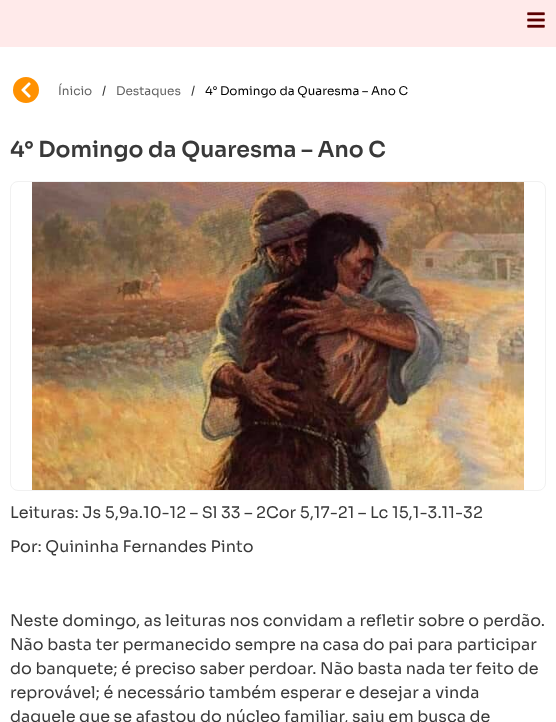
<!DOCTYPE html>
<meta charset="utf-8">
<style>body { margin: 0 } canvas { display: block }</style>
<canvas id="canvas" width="556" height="722"></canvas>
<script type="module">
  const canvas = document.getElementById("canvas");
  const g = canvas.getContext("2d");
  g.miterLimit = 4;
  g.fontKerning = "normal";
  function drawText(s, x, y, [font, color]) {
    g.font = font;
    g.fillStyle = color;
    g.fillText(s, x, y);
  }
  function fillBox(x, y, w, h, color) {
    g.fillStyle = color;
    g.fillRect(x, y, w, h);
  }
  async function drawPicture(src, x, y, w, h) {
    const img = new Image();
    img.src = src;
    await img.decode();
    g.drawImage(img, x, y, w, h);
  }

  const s1 = ["12px Sora", "#636363"];
  const s2 = ["12px Sora", "#333333"];
  const s3 = ["12px Sora", "#000000"];
  const s4 = ["600 22px Sora", "#393939"];
  const s5 = ["16px Sora", "#393939"];

  fillBox(0, 0, 556, 722, "#FFFFFF");
  fillBox(0, 0, 556, 47, "#FFEAEA");
  await drawPicture("pic1.png", 527, 12, 18, 16);
  g.fillStyle = "#FF9101";
  g.beginPath();
  g.arc(26, 90, 13, 0, Math.PI * 2);
  g.fill();
  await drawPicture("pic2.png", 21, 82, 10, 16);
  drawText("Ínicio", 58, 95, s1);
  drawText("/", 102, 95, s2);
  drawText("Destaques", 116, 95, s1);
  drawText("/", 191, 95, s2);
  drawText("4° Domingo da Quaresma – Ano C", 205, 95, s3);
  drawText("4° Domingo da Quaresma – Ano C", 10, 157, s4);
  g.beginPath();
  g.roundRect(10.5, 181.5, 535, 309, 7.5);
  g.strokeStyle = "#F1F1F1";
  g.stroke();
  await drawPicture("pic3.png", 32, 182, 492, 308);
  drawText("Leituras: Js 5,9a.10-12 – Sl 33 – 2Cor 5,17-21 – Lc 15,1-3.11-32", 10, 518, s5);
  drawText("Por: Quininha Fernandes Pinto", 10, 552, s5);
  drawText("Neste domingo, as leituras nos convidam a refletir sobre o perdão.", 10, 626, s5);
  drawText("Não basta ter permanecido sempre na casa do pai para participar", 10, 650, s5);
  drawText("do banquete; é preciso saber perdoar. Não basta nada ter feito de", 10, 674, s5);
  drawText("reprovável; é necessário também esperar e desejar a vinda", 10, 698, s5);
  drawText("daquele que se afastou do núcleo familiar, saiu em busca de", 10, 722, s5);
</script>
